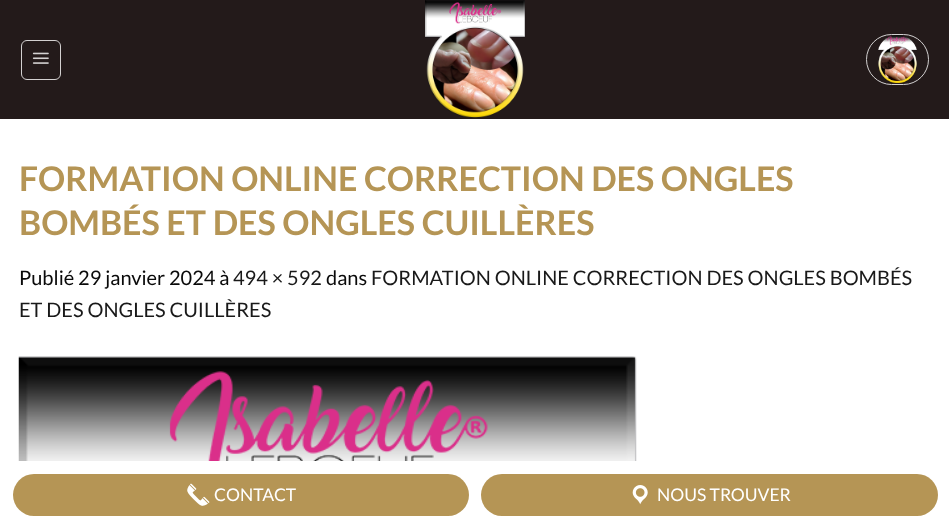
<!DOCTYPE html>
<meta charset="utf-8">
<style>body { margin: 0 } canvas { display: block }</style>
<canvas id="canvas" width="949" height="528"></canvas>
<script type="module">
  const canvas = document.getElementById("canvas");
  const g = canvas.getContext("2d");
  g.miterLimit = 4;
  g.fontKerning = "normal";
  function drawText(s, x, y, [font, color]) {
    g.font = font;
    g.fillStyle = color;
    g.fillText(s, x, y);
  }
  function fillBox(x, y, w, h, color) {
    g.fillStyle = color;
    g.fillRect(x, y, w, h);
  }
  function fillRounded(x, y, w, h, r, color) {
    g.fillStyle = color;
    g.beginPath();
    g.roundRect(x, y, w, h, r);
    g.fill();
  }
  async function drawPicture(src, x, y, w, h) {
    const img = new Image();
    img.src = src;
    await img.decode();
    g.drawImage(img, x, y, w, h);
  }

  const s1 = ["bold 34px Lato", "#B59555"];
  const s2 = ["20px Lato", "#0A0A0A"];
  const s3 = ["20px Lato", "#191919"];
  const s4 = ["17.5px Lato", "#FFFFFF"];

  fillBox(0, 0, 949, 528, "#FFFFFF");
  fillBox(0, 0, 949, 119, "#231A1A");
  g.beginPath();
  g.roundRect(21.5, 40.5, 39, 39, 5.5);
  g.strokeStyle = "#D3D1D1";
  g.stroke();
  await drawPicture("pic1.png", 32, 52, 17, 12);
  await drawPicture("pic2.png", 425, 0, 100, 118);
  g.beginPath();
  g.roundRect(866.5, 34.5, 62, 50, 25);
  g.stroke();
  await drawPicture("pic3.png", 878, 35, 39, 48);
  drawText("FORMATION ONLINE CORRECTION DES ONGLES", 19, 191, s1);
  drawText("BOMBÉS ET DES ONGLES CUILLÈRES", 19, 235, s1);
  drawText("Publié 29 janvier 2024 à", 19, 285, s2);
  drawText("494 × 592", 233, 285, s3);
  drawText("dans", 326, 285, s2);
  drawText("FORMATION ONLINE CORRECTION DES ONGLES BOMBÉS", 371, 285, s3);
  drawText("ET DES ONGLES CUILLÈRES", 19, 317, s3);
  await drawPicture("pic4.png", 18, 356, 619, 105);
  fillRounded(13, 474, 456, 42, 21, "#B59555");
  await drawPicture("pic5.png", 187, 483, 23, 23);
  drawText("CONTACT", 214, 501, s4);
  fillRounded(481, 474, 457, 42, 21, "#B59555");
  await drawPicture("pic6.png", 632, 485, 16, 20);
  drawText("NOUS TROUVER", 657, 501, s4);
</script>
